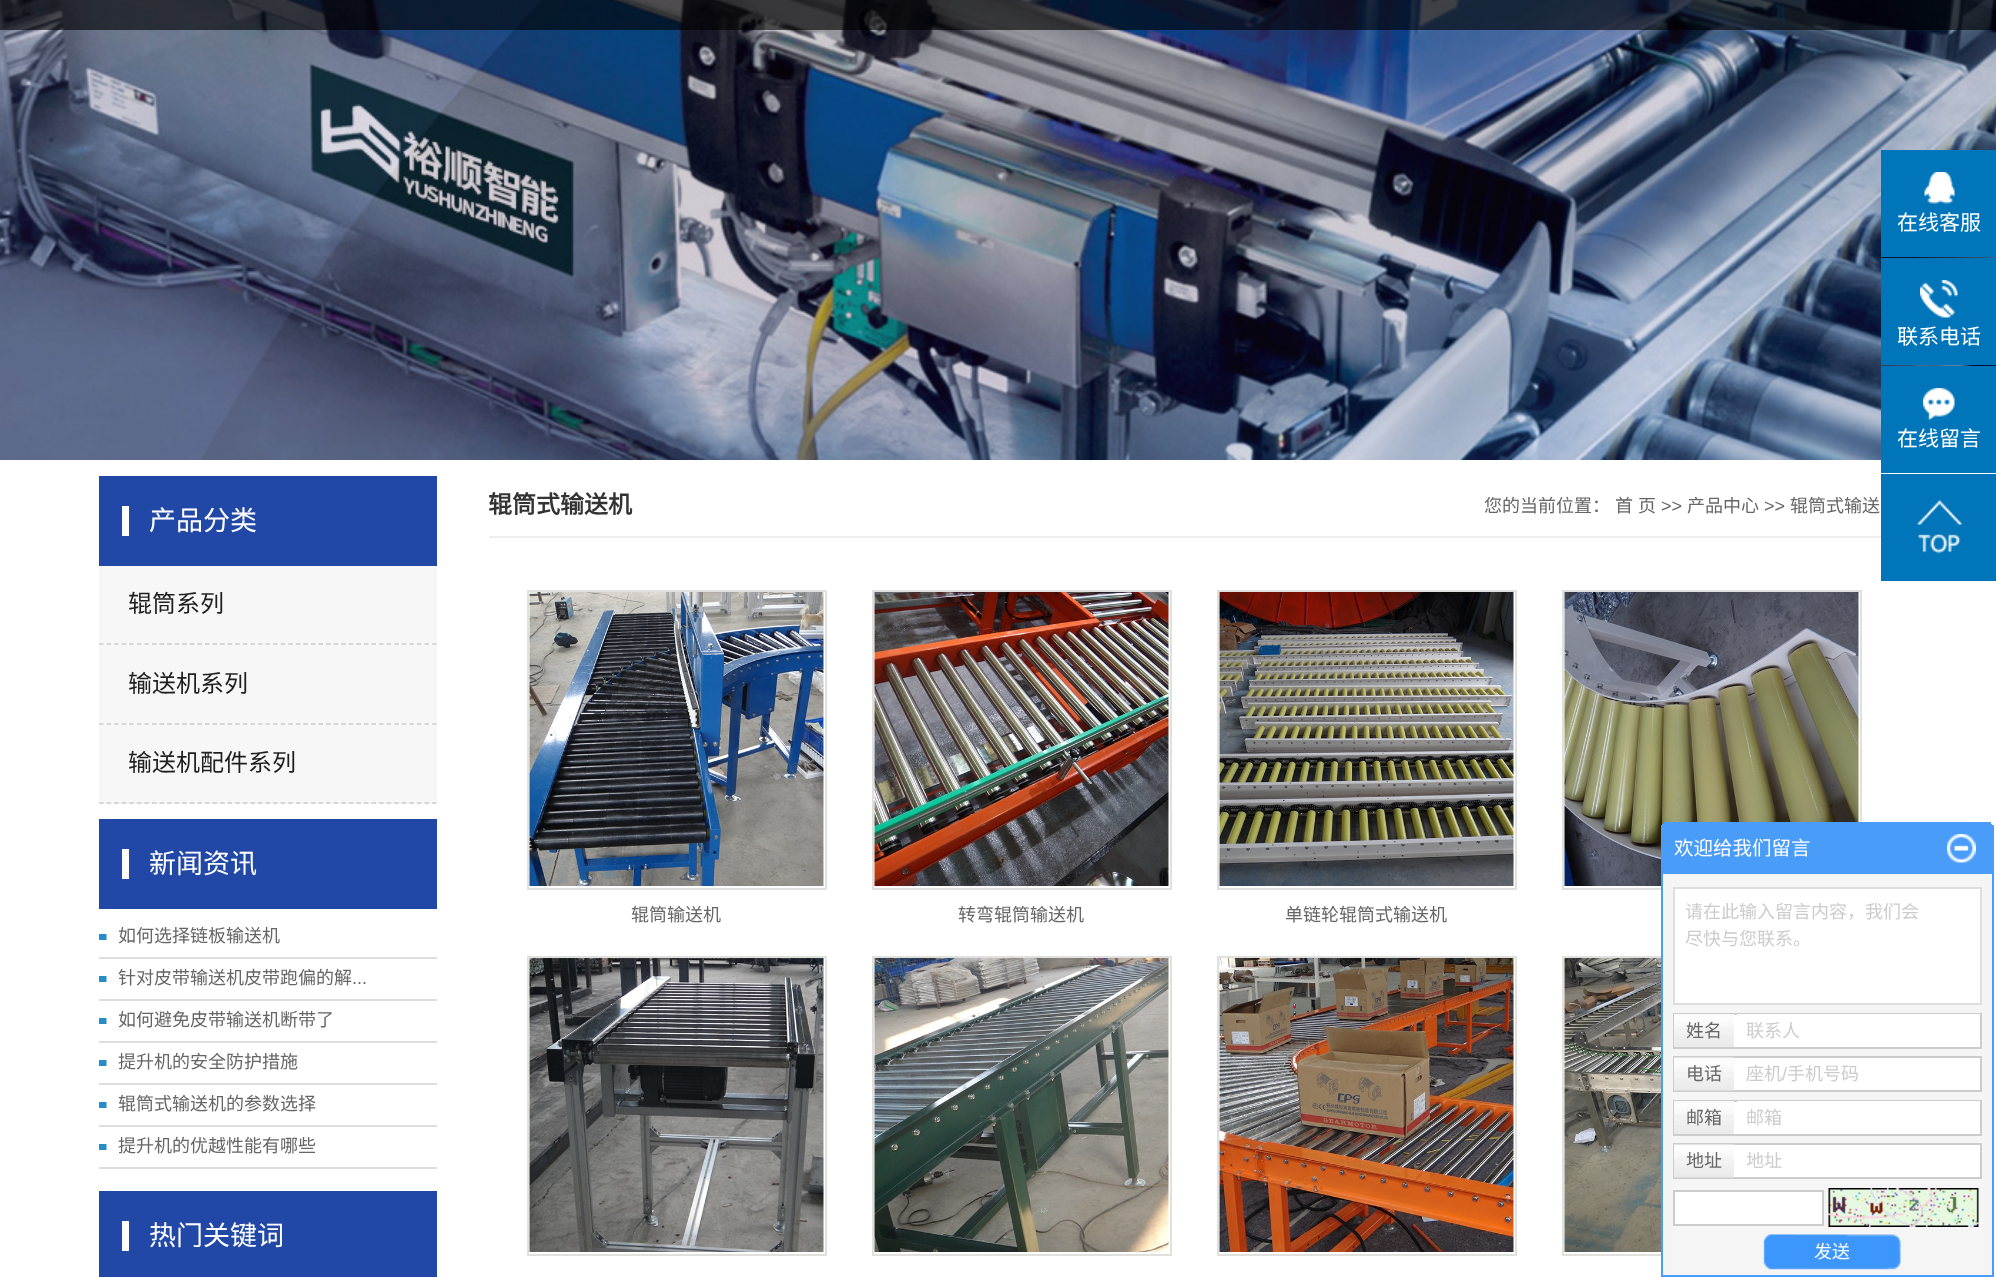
<!DOCTYPE html>
<meta charset="utf-8">
<style>body { margin: 0 } canvas { display: block }</style>
<canvas id="canvas" width="1996" height="1277"></canvas>
<script type="module">
  const canvas = document.getElementById("canvas");
  const g = canvas.getContext("2d");
  g.miterLimit = 4;
  g.fontKerning = "normal";
  function drawText(s, x, y, [font, color]) {
    g.font = font;
    g.fillStyle = color;
    g.fillText(s, x, y);
  }
  function fillBox(x, y, w, h, color) {
    g.fillStyle = color;
    g.fillRect(x, y, w, h);
  }
  async function drawPicture(src, x, y, w, h) {
    const img = new Image();
    img.src = src;
    await img.decode();
    g.drawImage(img, x, y, w, h);
  }

  const s1 = ["21px Noto Sans CJK SC", "#FFFFFF"];
  const s2 = ["27px Noto Sans CJK SC", "#FFFFFF"];
  const s3 = ["24px Noto Sans CJK SC", "#1F1F1F"];
  const s4 = ["18px Noto Sans CJK SC", "#666666"];
  const s5 = ["18px Liberation Sans", "#666666"];
  const s6 = ["bold 24px Noto Sans CJK SC", "#333333"];
  const s7 = ["19.5px Noto Sans CJK SC", "#FFFFFF"];
  const s8 = ["18px Noto Sans CJK SC", "#CCCCCC"];
  const s9 = ["18px Liberation Sans", "#CCCCCC"];
  const s10 = ["18px Noto Sans CJK SC", "#FFFFFF"];

  fillBox(0, 0, 1996, 1277, "#FFFFFF");
  await drawPicture("pic1.png", 0, 0, 1996, 460);
  fillBox(0, 0, 1996, 30, "rgba(0, 0, 0, 0.62)");
  fillBox(1881, 150, 115, 107, "#0075B9");
  await drawPicture("pic2.png", 1924, 172, 31, 32);
  drawText("在线客服", 1897, 230, s1);
  fillBox(1881, 258, 115, 107, "#0075B9");
  await drawPicture("pic3.png", 1920, 280, 38, 38);
  drawText("联系电话", 1897, 344, s1);
  fillBox(1881, 366, 115, 107, "#0075B9");
  await drawPicture("pic4.png", 1923, 388, 32, 32);
  drawText("在线留言", 1897, 446, s1);
  fillBox(1881, 474, 115, 107, "#0075B9");
  await drawPicture("pic5.png", 1916, 500, 47, 54);
  fillBox(99, 476, 338, 90, "#2248A7");
  fillBox(122, 506, 7, 30, "#FFFFFF");
  drawText("产品分类", 149, 530, s2);
  fillBox(99, 566, 338, 238, "#F7F7F7");
  g.beginPath();
  g.moveTo(99, 644);
  g.lineTo(436.5, 644);
  g.strokeStyle = "#CCCCCC";
  g.lineWidth = 1.5;
  g.setLineDash([4.5, 3.07]);
  g.stroke();
  drawText("辊筒系列", 128, 612, s3);
  g.beginPath();
  g.moveTo(99, 724);
  g.lineTo(436.5, 724);
  g.stroke();
  drawText("输送机系列", 128, 692, s3);
  g.beginPath();
  g.moveTo(99, 803);
  g.lineTo(436.5, 803);
  g.stroke();
  drawText("输送机配件系列", 128, 771, s3);
  fillBox(99, 819, 338, 90, "#2248A7");
  fillBox(122, 849, 7, 30, "#FFFFFF");
  drawText("新闻资讯", 149, 873, s2);
  await drawPicture("pic6.png", 99, 934, 8, 6);
  fillBox(99, 957, 338, 2, "#DDDDDD");
  drawText("如何选择链板输送机", 118, 942, s4);
  await drawPicture("pic6.png", 99, 976, 8, 6);
  fillBox(99, 999, 338, 2, "#DDDDDD");
  drawText("针对皮带输送机皮带跑偏的解", 118, 984, s4);
  drawText("...", 352, 984, s5);
  await drawPicture("pic6.png", 99, 1018, 8, 6);
  fillBox(99, 1041, 338, 2, "#DDDDDD");
  drawText("如何避免皮带输送机断带了", 118, 1026, s4);
  await drawPicture("pic6.png", 99, 1060, 8, 6);
  fillBox(99, 1083, 338, 2, "#DDDDDD");
  drawText("提升机的安全防护措施", 118, 1068, s4);
  await drawPicture("pic6.png", 99, 1102, 8, 6);
  fillBox(99, 1125, 338, 2, "#DDDDDD");
  drawText("辊筒式输送机的参数选择", 118, 1110, s4);
  await drawPicture("pic6.png", 99, 1144, 8, 6);
  fillBox(99, 1167, 338, 2, "#DDDDDD");
  drawText("提升机的优越性能有哪些", 118, 1152, s4);
  fillBox(99, 1191, 338, 86, "#2248A7");
  fillBox(122, 1221, 7, 30, "#FFFFFF");
  drawText("热门关键词", 149, 1245, s2);
  fillBox(489, 536, 1392, 2, "#EEEEEE");
  drawText("辊筒式输送机", 488, 513, s6);
  drawText("您的当前位置：", 1484, 512, s4);
  g.wordSpacing = "1px";
  drawText("首 页", 1615, 512, s4);
  g.wordSpacing = "0px";
  drawText(">>", 1661, 512, s5);
  drawText("产品中心", 1687, 512, s4);
  drawText(">>", 1764, 512, s5);
  drawText("辊筒式输送", 1790, 512, s4);
  g.strokeStyle = "#E0E1DC";
  g.lineWidth = 2;
  g.setLineDash([]);
  g.strokeRect(1563, 591, 298, 298);
  await drawPicture("pic7.png", 1564, 592, 295, 294);
  g.strokeRect(528, 591, 298, 298);
  await drawPicture("pic8.png", 529, 592, 295, 294);
  drawText("辊筒输送机", 631, 921, s4);
  g.strokeRect(873, 591, 298, 298);
  await drawPicture("pic9.png", 874, 592, 295, 294);
  drawText("转弯辊筒输送机", 958, 921, s4);
  g.strokeRect(1218, 591, 298, 298);
  await drawPicture("pic10.png", 1219, 592, 295, 294);
  drawText("单链轮辊筒式输送机", 1285, 921, s4);
  g.strokeRect(528, 957, 298, 298);
  await drawPicture("pic11.png", 529, 958, 295, 294);
  g.strokeRect(873, 957, 298, 298);
  await drawPicture("pic12.png", 874, 958, 295, 294);
  g.strokeRect(1218, 957, 298, 298);
  await drawPicture("pic13.png", 1219, 958, 295, 294);
  g.strokeRect(1563, 957, 298, 298);
  await drawPicture("pic14.png", 1564, 958, 97, 294);
  fillBox(1664, 822, 327, 2, "#4A9CF9");
  fillBox(1662, 824, 330, 1, "#4A9CF9");
  fillBox(1661, 825, 333, 47, "#4A9CF9");
  drawText("欢迎给我们留言", 1674, 855, s7);
  await drawPicture("pic15.png", 1947, 834, 29, 29);
  await drawPicture("pic16.png", 1663, 874, 329, 401);
  g.strokeStyle = "#4A9CF9";
  g.strokeRect(1662, 873, 331, 403);
  g.beginPath();
  g.rect(1674, 888, 307, 116);
  g.fill();
  g.strokeStyle = "#DEDEDE";
  g.stroke();
  drawText("请在此输入留言内容，我们会", 1685, 918, s8);
  drawText("尽快与您联系。", 1685, 945, s8);
  fillBox(1734, 1015, 3, 32, "#FFFFFF");
  g.strokeStyle = "#CCCCCC";
  g.strokeRect(1674, 1014, 307, 34);
  await drawPicture("pic17.png", 1674, 1014, 60, 33);
  drawText("姓名", 1686, 1037, s4);
  fillBox(1737, 1014, 243, 33, "#FFFFFF");
  drawText("联系人", 1746, 1037, s8);
  fillBox(1734, 1058, 246, 32, "#FFFFFF");
  g.strokeRect(1674, 1057, 307, 34);
  await drawPicture("pic18.png", 1674, 1057, 60, 34);
  drawText("电话", 1686, 1080, s4);
  drawText("座机", 1746, 1080, s8);
  drawText("/", 1782, 1080, s9);
  drawText("手机号码", 1787, 1080, s8);
  fillBox(1734, 1102, 246, 32, "#FFFFFF");
  g.strokeRect(1674, 1101, 307, 34);
  await drawPicture("pic17.png", 1674, 1101, 60, 33);
  drawText("邮箱", 1686, 1124, s4);
  fillBox(1737, 1101, 243, 1, "#FFFFFF");
  drawText("邮箱", 1746, 1124, s8);
  fillBox(1734, 1145, 246, 32, "#FFFFFF");
  g.strokeRect(1674, 1144, 307, 34);
  await drawPicture("pic19.png", 1674, 1144, 60, 34);
  drawText("地址", 1686, 1167, s4);
  drawText("地址", 1746, 1167, s8);
  g.fillStyle = "#FFFFFF";
  g.beginPath();
  g.rect(1674, 1191, 149, 34);
  g.fill();
  g.stroke();
  await drawPicture("pic20.png", 1828, 1188, 151, 39);
  await drawPicture("pic21.png", 1763, 1234, 138, 36);
  drawText("发送", 1814, 1258, s10);
</script>
